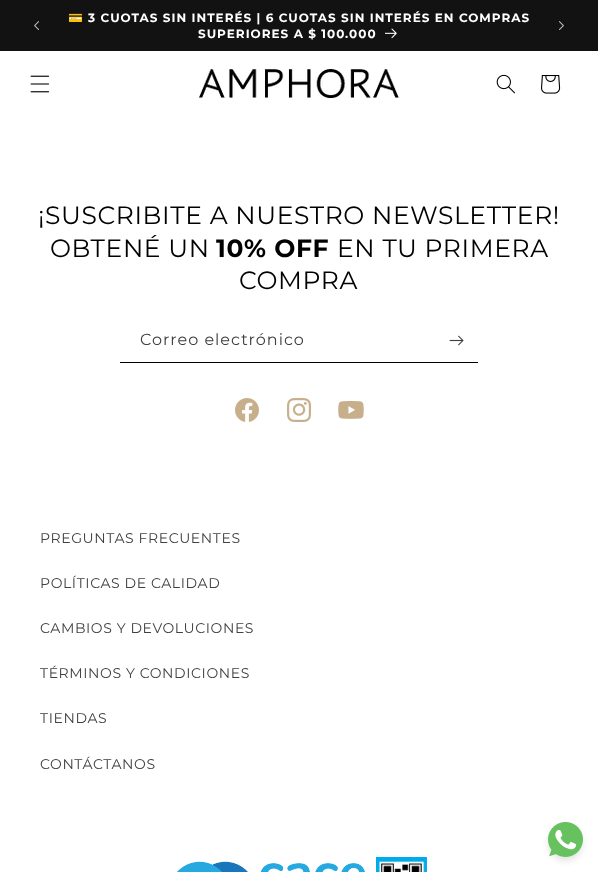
<!DOCTYPE html>
<meta charset="utf-8">
<style>body { margin: 0 } canvas { display: block }</style>
<canvas id="canvas" width="598" height="872"></canvas>
<script type="module">
  const canvas = document.getElementById("canvas");
  const g = canvas.getContext("2d");
  g.miterLimit = 4;
  g.fontKerning = "normal";
  function drawText(s, x, y, [font, color]) {
    g.font = font;
    g.fillStyle = color;
    g.fillText(s, x, y);
  }
  function fillBox(x, y, w, h, color) {
    g.fillStyle = color;
    g.fillRect(x, y, w, h);
  }
  async function drawPicture(src, x, y, w, h) {
    const img = new Image();
    img.src = src;
    await img.decode();
    g.drawImage(img, x, y, w, h);
  }

  const s1 = ["bold 12px Noto Color Emoji", "#FFFFFF"];
  const s2 = ["bold 12px Montserrat", "#FFFFFF"];
  const s3 = ["25px Montserrat", "#000000"];
  const s4 = ["bold 25px Montserrat", "#000000"];
  const s5 = ["16px Montserrat", "#404040"];
  const s6 = ["14px Montserrat", "#404040"];

  fillBox(0, 0, 598, 872, "#FFFFFF");
  fillBox(0, 0, 598, 51, "#121212");
  await drawPicture("pic1.png", 34, 21, 5, 9);
  g.letterSpacing = "1px";
  drawText("💳", 68, 22, s1);
  drawText("3 CUOTAS SIN INTERÉS | 6 CUOTAS SIN INTERÉS EN COMPRAS", 88, 22, s2);
  drawText("SUPERIORES A $ 100.000", 198, 38, s2);
  await drawPicture("pic2.png", 385, 28, 12, 11);
  await drawPicture("pic3.png", 559, 21, 5, 9);
  await drawPicture("pic4.png", 30, 75, 20, 18);
  await drawPicture("pic5.png", 199, 69, 200, 30);
  await drawPicture("pic6.png", 496, 74, 19, 20);
  await drawPicture("pic7.png", 541, 75, 20, 19);
  g.letterSpacing = "0.6px";
  drawText("¡SUSCRIBITE A NUESTRO NEWSLETTER!", 38, 224, s3);
  drawText("OBTENÉ UN", 50, 257, s3);
  drawText("10% OFF", 216, 257, s4);
  drawText("EN TU PRIMERA", 337, 257, s3);
  drawText("COMPRA", 239, 289, s3);
  g.letterSpacing = "1px";
  drawText("Correo electrónico", 140, 345, s5);
  await drawPicture("pic8.png", 449, 335, 15, 11);
  fillBox(120, 362, 358, 1, "#000000");
  await drawPicture("pic9.png", 235, 398, 24, 24);
  await drawPicture("pic10.png", 287, 398, 24, 24);
  await drawPicture("pic11.png", 338, 401, 26, 18);
  g.letterSpacing = "0.6px";
  drawText("PREGUNTAS FRECUENTES", 40, 543, s6);
  drawText("POLÍTICAS DE CALIDAD", 40, 588, s6);
  drawText("CAMBIOS Y DEVOLUCIONES", 40, 633, s6);
  drawText("TÉRMINOS Y CONDICIONES", 40, 678, s6);
  drawText("TIENDAS", 40, 723, s6);
  drawText("CONTÁCTANOS", 40, 769, s6);
  await drawPicture("pic12.png", 177, 861, 188, 11);
  await drawPicture("pic13.png", 376, 857, 51, 15);
  g.fillStyle = "rgba(0, 0, 0, 0.1)";
  g.filter = "blur(3px)";
  g.beginPath();
  g.roundRect(548, 826, 35, 35, 17.5);
  g.fill();
  g.filter = "none";
  g.fillStyle = "#FFFFFF";
  g.beginPath();
  g.arc(565.5, 839.5, 17.5, 0, Math.PI * 2);
  g.fill();
  await drawPicture("pic14.png", 548, 822, 35, 35);
</script>
